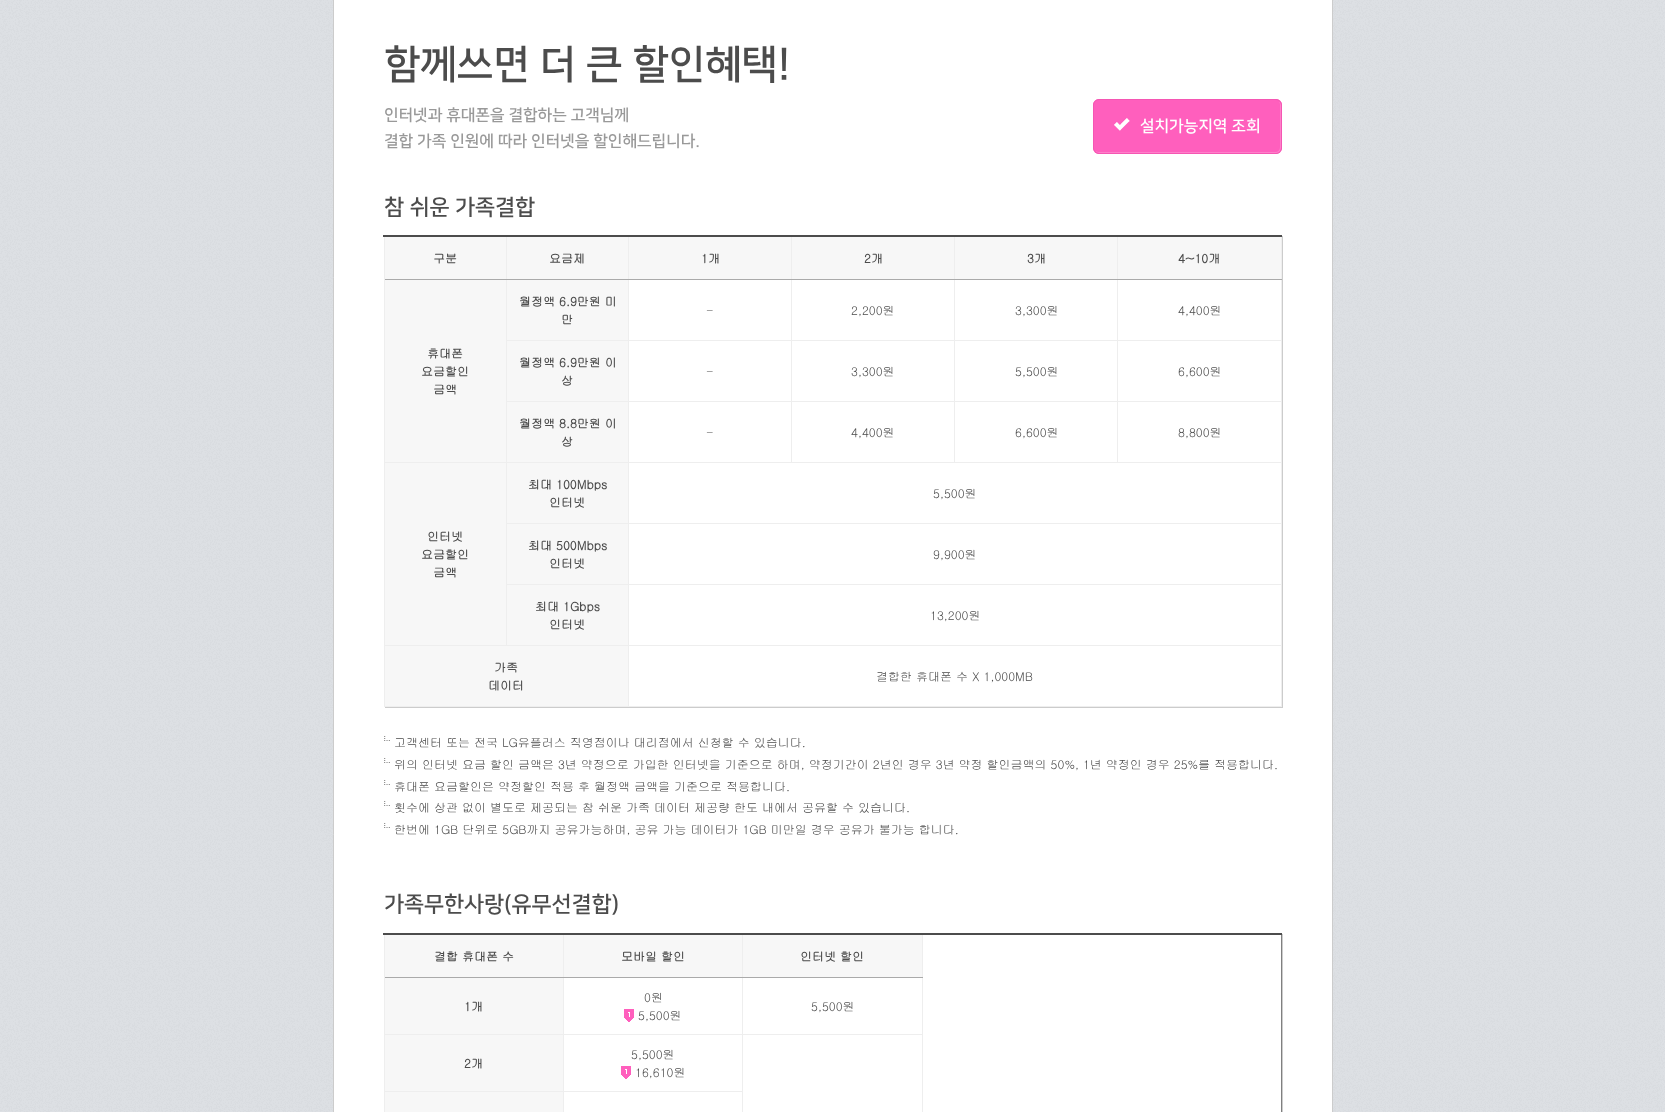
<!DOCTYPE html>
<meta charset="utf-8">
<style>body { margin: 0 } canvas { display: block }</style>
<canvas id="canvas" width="1665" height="1112"></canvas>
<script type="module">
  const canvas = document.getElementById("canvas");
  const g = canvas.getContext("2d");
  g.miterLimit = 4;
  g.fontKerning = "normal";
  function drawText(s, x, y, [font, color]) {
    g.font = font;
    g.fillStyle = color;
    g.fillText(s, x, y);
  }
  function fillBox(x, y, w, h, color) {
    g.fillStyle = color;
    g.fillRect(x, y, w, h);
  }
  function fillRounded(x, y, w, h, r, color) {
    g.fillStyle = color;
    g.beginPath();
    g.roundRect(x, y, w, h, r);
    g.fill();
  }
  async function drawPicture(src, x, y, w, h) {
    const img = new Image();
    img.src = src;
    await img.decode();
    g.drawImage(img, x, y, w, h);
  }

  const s1 = ["bold 40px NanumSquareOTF", "#4C4C4C"];
  const s2 = ["bold 16px NanumSquareOTF", "#999999"];
  const s3 = ["bold 16px NanumSquareOTF", "#FFFFFF"];
  const s4 = ["bold 22px NanumSquareOTF", "#4C4C4C"];
  const s5 = ["bold 12px Gulim", "#4C4C4C"];
  const s6 = ["12px Gulim", "#4C4C4C"];

  fillBox(0, 0, 1665, 1112, "#FFFFFF");
  await drawPicture("pic1.png", 0, 0, 1665, 1112);
  g.beginPath();
  g.rect(333.5, -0.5, 999, 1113);
  g.fill();
  g.strokeStyle = "#CCCCCC";
  g.stroke();
  drawText("함께쓰면 더 큰 할인혜택!", 384, 77, s1);
  drawText("인터넷과 휴대폰을 결합하는 고객님께", 384, 120, s2);
  fillRounded(1093, 99, 189, 55, 6, "#FF5FBD");
  g.fillStyle = "#FF7FCA";
  g.beginPath();
  g.moveTo(1095, 151);
  g.bezierCurveTo(1096, 152, 1098, 153, 1099, 153);
  g.lineTo(1276, 153);
  g.bezierCurveTo(1279, 153, 1281, 151, 1281, 148);
  g.lineTo(1281, 105);
  g.bezierCurveTo(1281, 104, 1280, 102, 1279, 101);
  g.lineTo(1280, 104);
  g.lineTo(1280, 147);
  g.bezierCurveTo(1280, 150, 1278, 152, 1275, 152);
  g.lineTo(1098, 152);
  g.closePath();
  g.fill();
  g.beginPath();
  g.roundRect(1093.5, 99.5, 188, 54, 5.5);
  g.strokeStyle = "#F556B3";
  g.stroke();
  await drawPicture("pic2.png", 1114, 118, 16, 13);
  drawText("설치가능지역 조회", 1140, 131, s3);
  drawText("결합 가족 인원에 따라 인터넷을 할인해드립니다.", 384, 146, s2);
  drawText("참 쉬운 가족결합", 384, 214, s4);
  g.save();
  g.beginPath();
  g.moveTo(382, 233);
  g.lineTo(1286, 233);
  g.lineTo(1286, 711);
  g.lineTo(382, 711);
  g.closePath();
  g.moveTo(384, 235);
  g.lineTo(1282, 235);
  g.lineTo(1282, 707);
  g.lineTo(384, 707);
  g.closePath();
  g.clip("evenodd");
  g.fillStyle = "rgba(0, 0, 0, 0.2)";
  g.filter = "blur(0.5px)";
  g.beginPath();
  g.rect(385, 236, 898, 472);
  g.fill();
  g.filter = "none";
  g.restore();
  fillBox(1117, 340, 165, 1, "#EEEEEE");
  fillBox(1117, 401, 165, 1, "#EEEEEE");
  fillBox(628, 462, 654, 1, "#EEEEEE");
  fillBox(1117, 401, 1, 62, "#EEEEEE");
  fillBox(954, 401, 164, 1, "#EEEEEE");
  fillBox(1117, 340, 1, 62, "#EEEEEE");
  fillBox(954, 340, 164, 1, "#EEEEEE");
  fillBox(1117, 279, 1, 62, "#EEEEEE");
  fillBox(628, 523, 654, 1, "#EEEEEE");
  fillBox(628, 584, 654, 1, "#EEEEEE");
  fillBox(628, 645, 654, 1, "#EEEEEE");
  fillBox(1281, 645, 1, 62, "#EEEEEE");
  fillBox(1281, 584, 1, 62, "#EEEEEE");
  fillBox(1281, 523, 1, 62, "#EEEEEE");
  fillBox(1281, 462, 1, 62, "#EEEEEE");
  fillBox(1281, 401, 1, 62, "#EEEEEE");
  fillBox(1281, 236, 1, 166, "#EEEEEE");
  fillBox(1117, 279, 165, 1, "#AAAAAA");
  fillBox(1117, 236, 1, 44, "#EEEEEE");
  fillBox(954, 401, 1, 62, "#EEEEEE");
  fillBox(791, 401, 164, 1, "#EEEEEE");
  fillBox(954, 340, 1, 62, "#EEEEEE");
  fillBox(791, 340, 164, 1, "#EEEEEE");
  fillBox(954, 279, 1, 62, "#EEEEEE");
  fillBox(954, 279, 164, 1, "#AAAAAA");
  fillBox(954, 236, 1, 44, "#EEEEEE");
  fillBox(791, 401, 1, 62, "#EEEEEE");
  fillBox(628, 401, 164, 1, "#EEEEEE");
  fillBox(791, 340, 1, 62, "#EEEEEE");
  fillBox(628, 340, 164, 1, "#EEEEEE");
  fillBox(791, 279, 1, 62, "#EEEEEE");
  fillBox(791, 279, 164, 1, "#AAAAAA");
  fillBox(791, 236, 1, 44, "#EEEEEE");
  fillBox(628, 706, 654, 1, "#EEEEEE");
  fillBox(628, 645, 1, 62, "#EEEEEE");
  fillBox(384, 645, 245, 1, "#EEEEEE");
  fillBox(628, 584, 1, 62, "#EEEEEE");
  fillBox(506, 584, 123, 1, "#EEEEEE");
  fillBox(628, 523, 1, 62, "#EEEEEE");
  fillBox(506, 523, 123, 1, "#EEEEEE");
  fillBox(628, 462, 1, 62, "#EEEEEE");
  fillBox(506, 462, 123, 1, "#EEEEEE");
  fillBox(628, 401, 1, 62, "#EEEEEE");
  fillBox(506, 401, 123, 1, "#EEEEEE");
  fillBox(628, 340, 1, 62, "#EEEEEE");
  fillBox(506, 340, 123, 1, "#EEEEEE");
  fillBox(628, 279, 1, 62, "#EEEEEE");
  fillBox(628, 279, 164, 1, "#AAAAAA");
  fillBox(628, 236, 1, 44, "#EEEEEE");
  fillBox(506, 584, 1, 62, "#EEEEEE");
  fillBox(506, 523, 1, 62, "#EEEEEE");
  fillBox(506, 462, 1, 62, "#EEEEEE");
  fillBox(384, 462, 123, 1, "#EEEEEE");
  fillBox(506, 401, 1, 62, "#EEEEEE");
  fillBox(506, 279, 1, 123, "#EEEEEE");
  fillBox(506, 279, 123, 1, "#AAAAAA");
  fillBox(506, 236, 1, 44, "#EEEEEE");
  fillBox(384, 706, 245, 1, "#EEEEEE");
  fillBox(384, 645, 1, 62, "#EEEEEE");
  fillBox(384, 279, 1, 367, "#EEEEEE");
  fillBox(384, 279, 123, 1, "#AAAAAA");
  fillBox(384, 236, 1, 44, "#EEEEEE");
  fillBox(383, 235, 899, 2, "#4C4C4C");
  fillBox(385, 237, 121, 42, "#F7F7F7");
  drawText("구분", 433, 263, s5);
  fillBox(507, 237, 121, 42, "#F7F7F7");
  drawText("요금제", 549, 263, s5);
  fillBox(629, 237, 162, 42, "#F7F7F7");
  drawText("1개", 701, 263, s5);
  fillBox(792, 237, 162, 42, "#F7F7F7");
  drawText("2개", 864, 263, s5);
  fillBox(955, 237, 162, 42, "#F7F7F7");
  drawText("3개", 1027, 263, s5);
  fillBox(1118, 237, 163, 42, "#F7F7F7");
  drawText("4~10개", 1178, 263, s5);
  fillBox(507, 280, 121, 60, "#F7F7F7");
  drawText("월정액 6.9만원 미", 519, 306, s5);
  drawText("만", 561, 324, s5);
  drawText("-", 706, 315, s6);
  drawText("2,200원", 851, 315, s6);
  drawText("3,300원", 1015, 315, s6);
  drawText("4,400원", 1178, 315, s6);
  fillBox(385, 280, 121, 182, "#F7F7F7");
  drawText("휴대폰", 427, 358, s5);
  drawText("요금할인", 421, 376, s5);
  drawText("금액", 433, 394, s5);
  fillBox(507, 341, 121, 60, "#F7F7F7");
  drawText("월정액 6.9만원 이", 519, 367, s5);
  drawText("상", 561, 385, s5);
  drawText("-", 706, 376, s6);
  drawText("3,300원", 851, 376, s6);
  drawText("5,500원", 1015, 376, s6);
  drawText("6,600원", 1178, 376, s6);
  fillBox(507, 402, 121, 60, "#F7F7F7");
  drawText("월정액 8.8만원 이", 519, 428, s5);
  drawText("상", 561, 446, s5);
  drawText("-", 706, 437, s6);
  drawText("4,400원", 851, 437, s6);
  drawText("6,600원", 1015, 437, s6);
  drawText("8,800원", 1178, 437, s6);
  fillBox(507, 463, 121, 60, "#F7F7F7");
  drawText("최대 100Mbps", 528, 489, s5);
  drawText("인터넷", 549, 507, s5);
  drawText("5,500원", 933, 498, s6);
  fillBox(385, 463, 121, 182, "#F7F7F7");
  drawText("인터넷", 427, 541, s5);
  drawText("요금할인", 421, 559, s5);
  drawText("금액", 433, 577, s5);
  fillBox(507, 524, 121, 60, "#F7F7F7");
  drawText("최대 500Mbps", 528, 550, s5);
  drawText("인터넷", 549, 568, s5);
  drawText("9,900원", 933, 559, s6);
  fillBox(507, 585, 121, 60, "#F7F7F7");
  drawText("최대 1Gbps", 535, 611, s5);
  drawText("인터넷", 549, 629, s5);
  drawText("13,200원", 930, 620, s6);
  fillBox(385, 646, 243, 60, "#F7F7F7");
  drawText("가족", 494, 672, s5);
  drawText("데이터", 488, 690, s5);
  drawText("결합한 휴대폰 수 X 1,000MB", 876, 681, s6);
  await drawPicture("pic3.png", 384, 736, 6, 5);
  drawText("고객센터 또는 전국 LG유플러스 직영점이나 대리점에서 신청할 수 있습니다.", 394, 747, s6);
  await drawPicture("pic3.png", 384, 758, 6, 5);
  drawText("위의 인터넷 요금 할인 금액은 3년 약정으로 가입한 인터넷을 기준으로 하며, 약정기간이 2년인 경우 3년 약정 할인금액의 50%, 1년 약정인 경우 25%를 적용합니다.", 394, 769, s6);
  await drawPicture("pic3.png", 384, 780, 6, 5);
  drawText("휴대폰 요금할인은 약정할인 적용 후 월정액 금액을 기준으로 적용합니다.", 394, 791, s6);
  await drawPicture("pic3.png", 384, 801, 6, 5);
  drawText("횟수에 상관 없이 별도로 제공되는 참 쉬운 가족 데이터 제공량 한도 내에서 공유할 수 있습니다.", 394, 812, s6);
  await drawPicture("pic3.png", 384, 823, 6, 5);
  drawText("한번에 1GB 단위로 5GB까지 공유가능하며, 공유 가능 데이터가 1GB 미만일 경우 공유가 불가능 합니다.", 394, 834, s6);
  drawText("가족무한사랑(유무선결합)", 384, 911, s4);
  g.save();
  g.beginPath();
  g.rect(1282, 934, 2, 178);
  g.clip();
  g.fillStyle = "rgba(0, 0, 0, 0.2)";
  g.filter = "blur(0.5px)";
  g.beginPath();
  g.rect(385, 934, 898, 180);
  g.fill();
  g.filter = "none";
  g.restore();
  fillBox(1281, 933, 1, 179, "#808080");
  fillBox(742, 1034, 181, 1, "#EEEEEE");
  fillBox(563, 1091, 180, 1, "#EEEEEE");
  fillBox(742, 1034, 1, 78, "#EEEEEE");
  fillBox(563, 1034, 180, 1, "#EEEEEE");
  fillBox(742, 977, 1, 58, "#EEEEEE");
  fillBox(922, 933, 1, 179, "#EEEEEE");
  fillBox(742, 977, 181, 1, "#AAAAAA");
  fillBox(742, 933, 1, 45, "#EEEEEE");
  fillBox(563, 1091, 1, 21, "#EEEEEE");
  fillBox(384, 1091, 180, 1, "#EEEEEE");
  fillBox(563, 1034, 1, 58, "#EEEEEE");
  fillBox(384, 1034, 180, 1, "#EEEEEE");
  fillBox(563, 977, 1, 58, "#EEEEEE");
  fillBox(563, 977, 180, 1, "#AAAAAA");
  fillBox(563, 933, 1, 45, "#EEEEEE");
  fillBox(384, 1091, 1, 21, "#EEEEEE");
  fillBox(384, 977, 1, 115, "#EEEEEE");
  fillBox(384, 977, 180, 1, "#AAAAAA");
  fillBox(384, 933, 1, 45, "#EEEEEE");
  fillBox(383, 933, 899, 2, "#4C4C4C");
  fillBox(385, 935, 178, 42, "#F7F7F7");
  drawText("결합 휴대폰 수", 434, 961, s5);
  fillBox(564, 935, 178, 42, "#F7F7F7");
  drawText("모바일 할인", 621, 961, s5);
  fillBox(743, 935, 179, 42, "#F7F7F7");
  drawText("인터넷 할인", 800, 961, s5);
  fillBox(385, 978, 178, 56, "#F7F7F7");
  drawText("1개", 464, 1011, s5);
  drawText("0원", 644, 1002, s6);
  await drawPicture("pic4.png", 624, 1009, 10, 13);
  drawText("5,500원", 638, 1020, s6);
  drawText("5,500원", 811, 1011, s6);
  fillBox(385, 1035, 178, 56, "#F7F7F7");
  drawText("2개", 464, 1068, s5);
  drawText("5,500원", 631, 1059, s6);
  await drawPicture("pic4.png", 621, 1066, 10, 13);
  drawText("16,610원", 635, 1077, s6);
  fillBox(385, 1092, 178, 20, "#F7F7F7");
</script>
